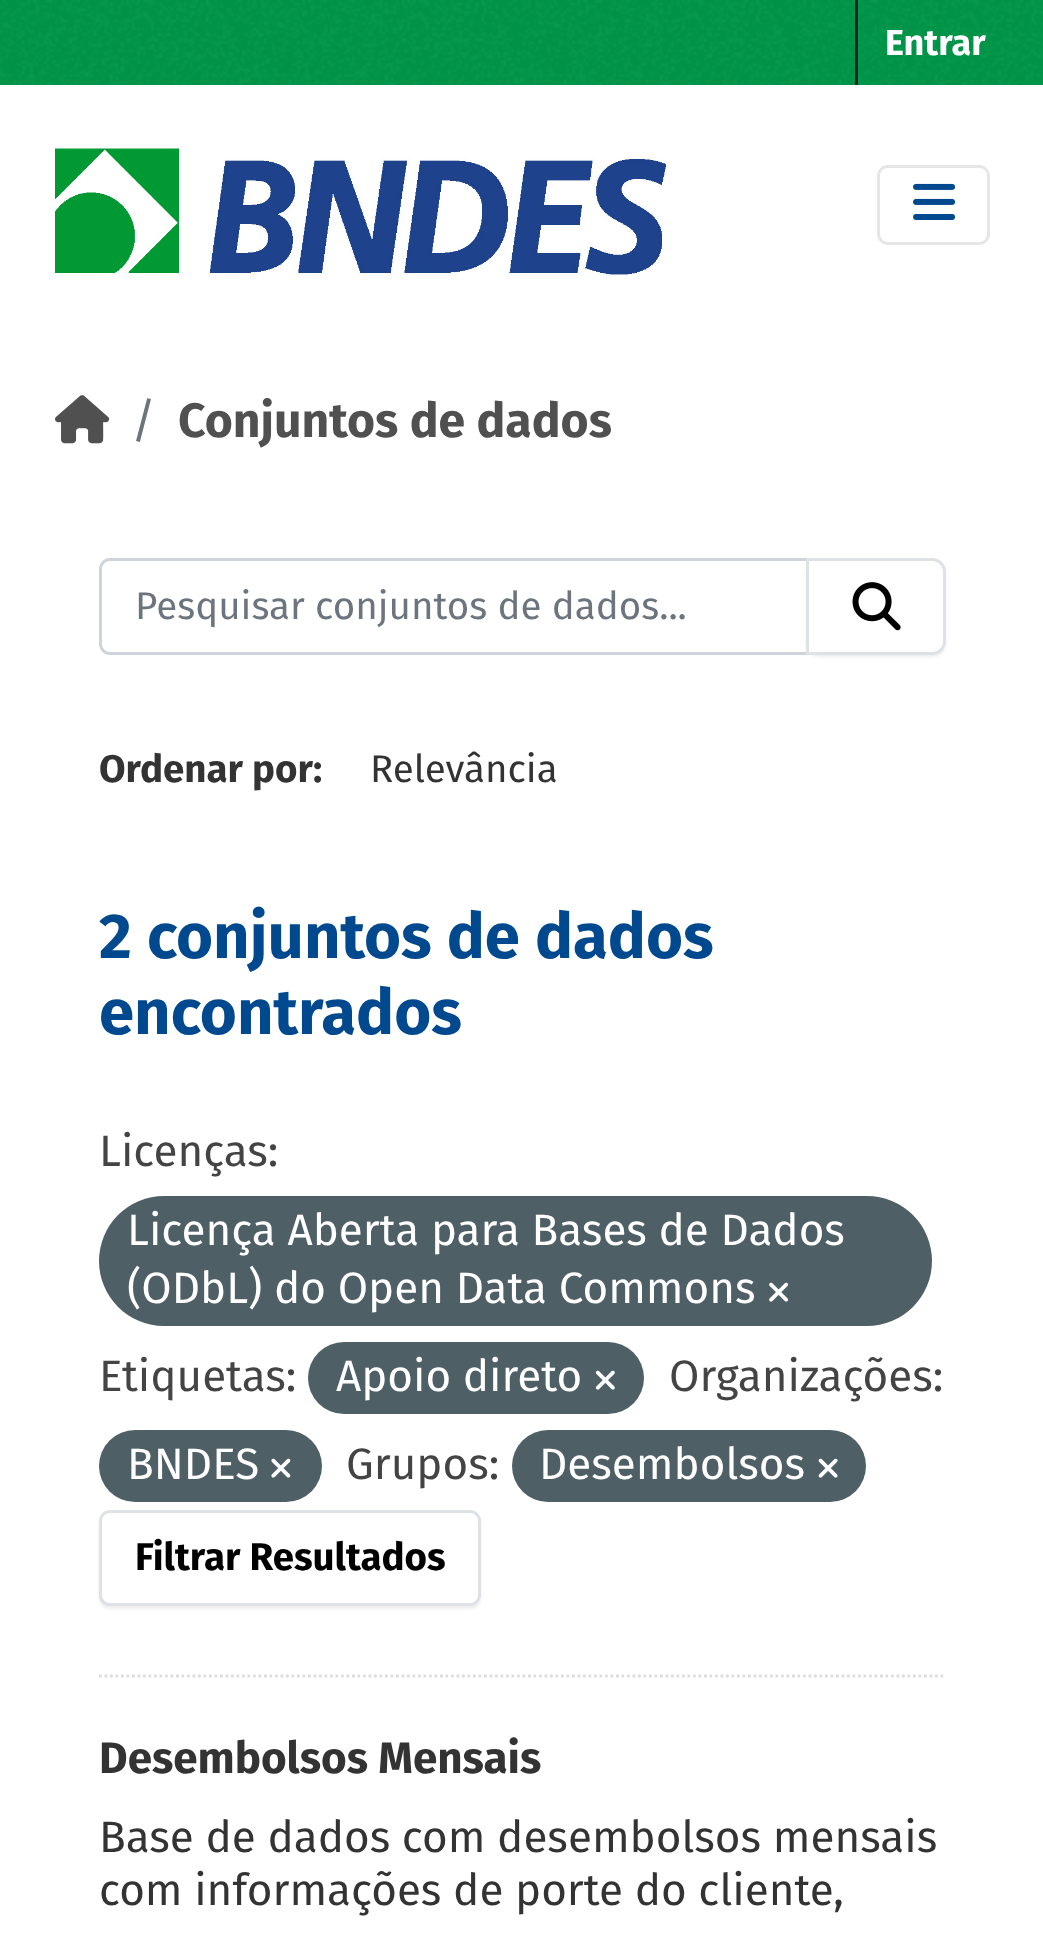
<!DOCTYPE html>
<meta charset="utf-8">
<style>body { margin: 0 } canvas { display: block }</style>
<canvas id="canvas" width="1043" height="1947"></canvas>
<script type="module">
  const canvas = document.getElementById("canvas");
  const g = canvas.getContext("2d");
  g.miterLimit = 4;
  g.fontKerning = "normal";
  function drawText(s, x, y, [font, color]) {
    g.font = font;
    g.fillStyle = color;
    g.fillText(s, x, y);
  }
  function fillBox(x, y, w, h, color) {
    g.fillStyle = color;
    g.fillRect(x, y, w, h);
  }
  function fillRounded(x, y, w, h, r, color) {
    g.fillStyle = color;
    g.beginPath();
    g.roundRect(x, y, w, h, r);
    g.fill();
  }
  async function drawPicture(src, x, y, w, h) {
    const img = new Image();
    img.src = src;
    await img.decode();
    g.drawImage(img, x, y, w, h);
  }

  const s1 = ["bold 36px Fira Sans", "#FFFFFF"];
  const s2 = ["48.1px Fira Sans", "#6C757D"];
  const s3 = ["bold 48.1px Fira Sans", "#505050"];
  const s4 = ["38.5px Fira Sans", "#6C757D"];
  const s5 = ["bold 38.5px Fira Sans", "#333333"];
  const s6 = ["38.5px Fira Sans", "#333333"];
  const s7 = ["bold 63.5px Fira Sans", "#01498F"];
  const s8 = ["44px Fira Sans", "#444444"];
  const s9 = ["44px Fira Sans", "#FFFFFF"];
  const s10 = ["bold 38.5px Fira Sans", "#000000"];
  const s11 = ["bold 44px Fira Sans", "#333333"];
  const s12 = ["44px Fira Sans", "#333333"];

  fillBox(0, 0, 1043, 1947, "#FFFFFF");
  fillBox(0, 0, 1043, 85, "#00984A");
  await drawPicture("pic1.png", 0, 0, 1043, 85);
  fillBox(855, 0, 3, 85, "#00232E");
  drawText("Entrar", 885, 55, s1);
  await drawPicture("pic2.png", 55, 148, 611, 128);
  g.beginPath();
  g.roundRect(878.5, 166.5, 110, 77, 9.5);
  g.strokeStyle = "#E6E6E6";
  g.lineWidth = 3;
  g.stroke();
  await drawPicture("pic3.png", 913, 183, 43, 37);
  await drawPicture("pic4.png", 55, 395, 55, 49);
  drawText("/", 131, 437, s2);
  drawText("Conjuntos de dados", 178, 437, s3);
  g.beginPath();
  g.moveTo(99, 1676);
  g.lineTo(946, 1676);
  g.strokeStyle = "#DDDDDD";
  g.lineWidth = 2.8;
  g.setLineDash([2.75, 2.75]);
  g.stroke();
  g.beginPath();
  g.roundRect(100.5, 559.5, 707, 94, [9.5, 0, 0, 9.5]);
  g.strokeStyle = "#CED4DA";
  g.lineWidth = 3;
  g.setLineDash([]);
  g.stroke();
  drawText("Pesquisar conjuntos de dados...", 135, 619, s4);
  g.fillStyle = "rgba(0, 0, 0, 0.07)";
  g.filter = "blur(1.5px)";
  g.beginPath();
  g.roundRect(806, 561, 140, 96, 14);
  g.fill();
  g.filter = "none";
  g.fillStyle = "#FFFFFF";
  g.beginPath();
  g.roundRect(807.5, 559.5, 137, 94, [0, 12.5, 12.5, 0]);
  g.fill();
  g.strokeStyle = "#DEE2E6";
  g.stroke();
  await drawPicture("pic5.png", 852, 582, 49, 49);
  drawText("Ordenar por", 99, 782, s5);
  drawText(":", 313, 782, s5);
  drawText("Relevância", 370, 782, s6);
  drawText("2 conjuntos de dados", 99, 958, s7);
  drawText("encontrados", 99, 1034, s7);
  drawText("Licenças:", 99, 1166, s8);
  fillRounded(99, 1196, 833, 130, 65, "#4E5F65");
  drawText("Licença Aberta para Bases de Dados", 127, 1245, s9);
  drawText("(ODbL) do Open Data Commons", 127, 1303, s9);
  await drawPicture("pic6.png", 769, 1282, 19, 20);
  drawText("Etiquetas:", 99, 1391, s8);
  fillRounded(308, 1342, 336, 72, 36, "#4E5F65");
  drawText("Apoio direto", 336, 1391, s9);
  await drawPicture("pic7.png", 595, 1370, 20, 20);
  drawText("Organizações:", 669, 1391, s8);
  fillRounded(99, 1430, 223, 72, 36, "#4E5F65");
  drawText("BNDES", 127, 1479, s9);
  await drawPicture("pic8.png", 271, 1458, 20, 20);
  drawText("Grupos:", 346, 1479, s8);
  fillRounded(512, 1430, 354, 72, 36, "#4E5F65");
  drawText("Desembolsos", 539, 1479, s9);
  await drawPicture("pic9.png", 818, 1458, 20, 20);
  g.fillStyle = "rgba(0, 0, 0, 0.07)";
  g.filter = "blur(1.5px)";
  g.beginPath();
  g.roundRect(99, 1513, 382, 96, 11);
  g.fill();
  g.filter = "none";
  g.fillStyle = "#FFFFFF";
  g.beginPath();
  g.roundRect(100.5, 1511.5, 379, 93, 9.5);
  g.fill();
  g.stroke();
  drawText("Filtrar Resultados", 135, 1570, s10);
  drawText("Desembolsos Mensais", 99, 1773, s11);
  drawText("Base de dados com desembolsos mensais", 99, 1852, s12);
  drawText("com informações de porte do cliente,", 99, 1905, s12);
</script>
